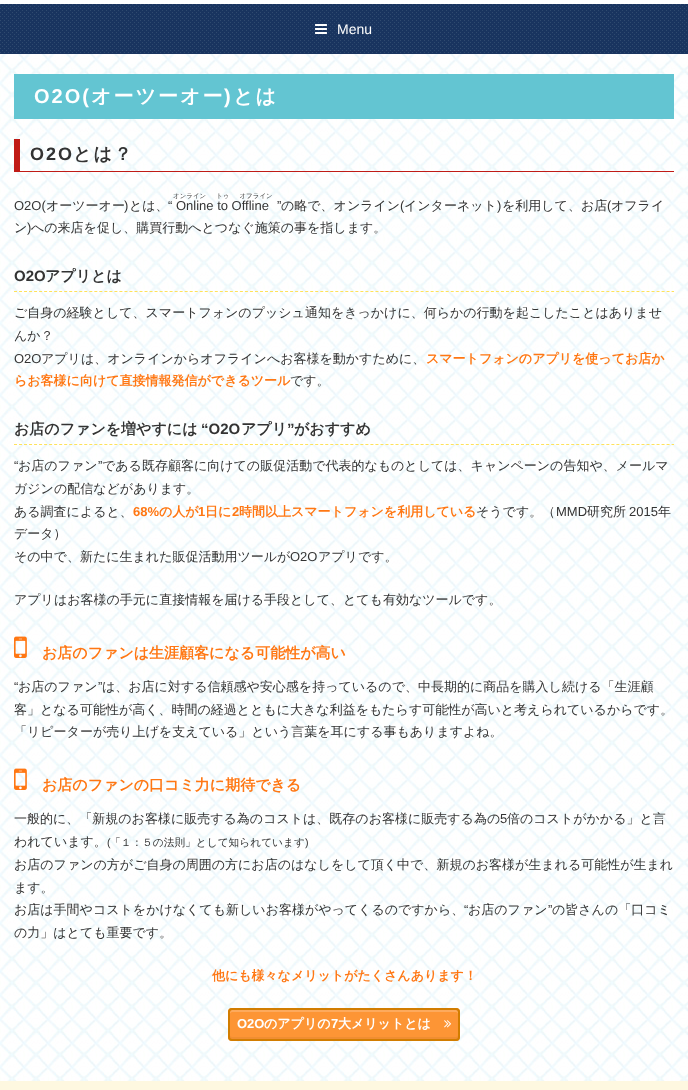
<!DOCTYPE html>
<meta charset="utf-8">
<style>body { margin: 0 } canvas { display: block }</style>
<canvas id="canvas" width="688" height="1090"></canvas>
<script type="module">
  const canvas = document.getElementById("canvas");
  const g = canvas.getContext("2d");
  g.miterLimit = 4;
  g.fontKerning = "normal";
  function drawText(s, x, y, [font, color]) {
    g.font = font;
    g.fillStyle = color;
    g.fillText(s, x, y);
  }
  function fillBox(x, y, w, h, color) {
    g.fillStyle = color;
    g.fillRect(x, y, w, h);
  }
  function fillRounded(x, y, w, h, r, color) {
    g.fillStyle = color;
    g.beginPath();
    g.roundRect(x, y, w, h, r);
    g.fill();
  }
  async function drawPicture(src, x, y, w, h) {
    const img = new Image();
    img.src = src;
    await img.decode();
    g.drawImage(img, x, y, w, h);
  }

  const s1 = ["14px Liberation Sans", "#FFFFFF"];
  const s2 = ["bold 20px Liberation Sans", "#FFFFFF"];
  const s3 = ["bold 20px WenQuanYi Zen Hei", "#FFFFFF"];
  const s4 = ["bold 18px Liberation Sans", "#333333"];
  const s5 = ["bold 18px WenQuanYi Zen Hei", "#333333"];
  const s6 = ["500 6.5px WenQuanYi Zen Hei", "#333333"];
  const s7 = ["13px Liberation Sans", "#333333"];
  const s8 = ["500 13px WenQuanYi Zen Hei", "#333333"];
  const s9 = ["bold 15px Liberation Sans", "#333333"];
  const s10 = ["bold 15px WenQuanYi Zen Hei", "#333333"];
  const s11 = ["bold 13px WenQuanYi Zen Hei", "#FF7713"];
  const s12 = ["bold 13px Liberation Sans", "#FF7713"];
  const s13 = ["bold 15px WenQuanYi Zen Hei", "#FF7713"];
  const s14 = ["10.7px Liberation Sans", "#333333"];
  const s15 = ["500 10.7px WenQuanYi Zen Hei", "#333333"];
  const s16 = ["bold 13px Liberation Sans", "#FFFFFF"];
  const s17 = ["bold 13px WenQuanYi Zen Hei", "#FFFFFF"];

  fillBox(0, 0, 688, 1090, "#FFFFFF");
  await drawPicture("pic1.png", 0, 54, 688, 1027);
  await drawPicture("pic2.png", 0, 4, 688, 50);
  await drawPicture("pic3.png", 315, 24, 12, 10);
  drawText("Menu", 337, 34, s1);
  fillBox(14, 74, 660, 45, "#63C5D2");
  g.letterSpacing = "2px";
  drawText("O2O(", 34, 103, s2);
  drawText("オーツーオー", 91, 103, s3);
  drawText(")", 224, 103, s2);
  drawText("とは", 233, 103, s3);
  fillBox(14, 171, 660, 1, "#C01B16");
  fillBox(14, 139, 6, 33, "#C01B16");
  drawText("O2O", 30, 160, s4);
  drawText("とは？", 73, 160, s5);
  g.letterSpacing = "0px";
  g.wordSpacing = "8px";
  drawText("オンライン トゥ オフライン", 173, 198, s6);
  g.wordSpacing = "0px";
  drawText("O2O(", 14, 210, s7);
  drawText("オーツーオー", 46, 210, s8);
  drawText(")", 124, 210, s7);
  drawText("とは、", 129, 210, s8);
  drawText("“ Online to Offline", 168, 210, s7);
  drawText("”", 277, 210, s7);
  drawText("の略で、オンライン", 281, 210, s8);
  drawText("(", 400, 210, s7);
  drawText("インターネット", 404, 210, s8);
  drawText(")", 497, 210, s7);
  drawText("を利用して、お店", 502, 210, s8);
  drawText("(", 607, 210, s7);
  drawText("オフライ", 611, 210, s8);
  drawText("ン", 14, 232, s8);
  drawText(")", 27, 232, s7);
  drawText("への来店を促し、購買行動へとつなぐ施策の事を指します。", 31, 232, s8);
  g.beginPath();
  g.moveTo(14, 291.5);
  g.lineTo(674, 291.5);
  g.strokeStyle = "#FFE25A";
  g.setLineDash([3, 2.02]);
  g.stroke();
  drawText("O2O", 14, 281, s9);
  drawText("アプリとは", 45, 281, s10);
  drawText("ご自身の経験として、スマートフォンのプッシュ通知をきっかけに、何らかの行動を起こしたことはありませ", 14, 317, s8);
  drawText("んか？", 14, 340, s8);
  drawText("O2O", 14, 363, s7);
  drawText("アプリは、オンラインからオフラインへお客様を動かすために、", 41, 363, s8);
  drawText("スマートフォンのアプリを使ってお店か", 426, 363, s11);
  drawText("らお客様に向けて直接情報発信ができるツール", 14, 385, s11);
  drawText("です。", 290, 385, s8);
  g.beginPath();
  g.moveTo(14, 444.5);
  g.lineTo(674, 444.5);
  g.stroke();
  drawText("お店のファンを増やすには", 14, 434, s10);
  drawText("“O2O", 201, 434, s9);
  drawText("アプリ", 241, 434, s10);
  drawText("”", 287, 434, s9);
  drawText("がおすすめ", 294, 434, s10);
  drawText("“", 14, 470, s7);
  drawText("お店のファン", 18, 470, s8);
  drawText("”", 98, 470, s7);
  drawText("である既存顧客に向けての販促活動で代表的なものとしては、キャンペーンの告知や、メールマ", 102, 470, s8);
  drawText("ガジンの配信などがあります。", 14, 493, s8);
  drawText("ある調査によると、", 14, 516, s8);
  drawText("68%", 133, 516, s12);
  drawText("の人が", 159, 516, s11);
  drawText("1", 198, 516, s12);
  drawText("日に", 205, 516, s11);
  drawText("2", 232, 516, s12);
  drawText("時間以上スマートフォンを利用している", 239, 516, s11);
  drawText("そうです。（", 476, 516, s8);
  drawText("MMD", 556, 516, s7);
  drawText("研究所", 587, 516, s8);
  drawText("2015", 629, 516, s7);
  drawText("年", 658, 516, s8);
  drawText("データ）", 14, 538, s8);
  drawText("その中で、新たに生まれた販促活動用ツールが", 14, 561, s8);
  drawText("O2O", 290, 561, s7);
  drawText("アプリです。", 318, 561, s8);
  drawText("アプリはお客様の手元に直接情報を届ける手段として、とても有効なツールです。", 14, 604, s8);
  await drawPicture("pic4.png", 14, 636, 13, 22);
  drawText("お店のファンは生涯顧客になる可能性が高い", 42, 658, s13);
  drawText("“", 14, 691, s7);
  drawText("お店のファン", 18, 691, s8);
  drawText("”", 98, 691, s7);
  drawText("は、お店に対する信頼感や安心感を持っているので、中長期的に商品を購入し続ける「生涯顧", 102, 691, s8);
  drawText("客」となる可能性が高く、時間の経過とともに大きな利益をもたらす可能性が高いと考えられているからです。", 14, 714, s8);
  drawText("「リピーターが売り上げを支えている」という言葉を耳にする事もありますよね。", 14, 736, s8);
  await drawPicture("pic5.png", 14, 768, 13, 22);
  drawText("お店のファンの口コミ力に期待できる", 42, 790, s13);
  drawText("一般的に、「新規のお客様に販売する為のコストは、既存のお客様に販売する為の", 14, 823, s8);
  drawText("5", 500, 823, s7);
  drawText("倍のコストがかかる」と言", 507, 823, s8);
  drawText("われています。", 14, 846, s8);
  drawText("(", 107, 846, s14);
  drawText("「１：５の法則」として知られています", 110, 846, s15);
  drawText(")", 305, 846, s14);
  drawText("お店のファンの方がご自身の周囲の方にお店のはなしをして頂く中で、新規のお客様が生まれる可能性が生まれ", 14, 869, s8);
  drawText("ます。", 14, 892, s8);
  drawText("お店は手間やコストをかけなくても新しいお客様がやってくるのですから、", 14, 914, s8);
  drawText("“", 464, 914, s7);
  drawText("お店のファン", 468, 914, s8);
  drawText("”", 548, 914, s7);
  drawText("の皆さんの「口コミ", 552, 914, s8);
  drawText("の力」はとても重要です。", 14, 937, s8);
  drawText("他にも様々なメリットがたくさんあります！", 212, 980, s11);
  fillRounded(228, 1008, 232, 33, 4, "#FD9535");
  g.fillStyle = "#F08E32";
  g.beginPath();
  g.moveTo(230, 1035);
  g.bezierCurveTo(230, 1037, 230, 1039, 232, 1039);
  g.lineTo(456, 1039);
  g.bezierCurveTo(458, 1039, 458, 1037, 458, 1035);
  g.bezierCurveTo(458, 1036, 457, 1037, 456, 1037);
  g.lineTo(232, 1037);
  g.bezierCurveTo(231, 1037, 230, 1036, 230, 1035);
  g.closePath();
  g.fill();
  g.fillStyle = "#FDAA5D";
  g.beginPath();
  g.moveTo(232, 1012);
  g.lineTo(456, 1012);
  g.bezierCurveTo(457, 1012, 458, 1013, 458, 1014);
  g.bezierCurveTo(458, 1012, 458, 1010, 456, 1010);
  g.lineTo(232, 1010);
  g.bezierCurveTo(230, 1010, 230, 1012, 230, 1014);
  g.bezierCurveTo(230, 1013, 231, 1012, 232, 1012);
  g.closePath();
  g.fill();
  g.beginPath();
  g.roundRect(229, 1009, 230, 31, 3);
  g.strokeStyle = "#D27D00";
  g.lineWidth = 2;
  g.setLineDash([]);
  g.stroke();
  drawText("O2O", 237, 1028, s16);
  drawText("のアプリの", 264, 1028, s17);
  drawText("7", 331, 1028, s16);
  drawText("大メリットとは", 338, 1028, s17);
  await drawPicture("pic6.png", 444, 1020, 8, 8);
  fillBox(0, 1081, 688, 9, "#FEF8E0");
</script>
